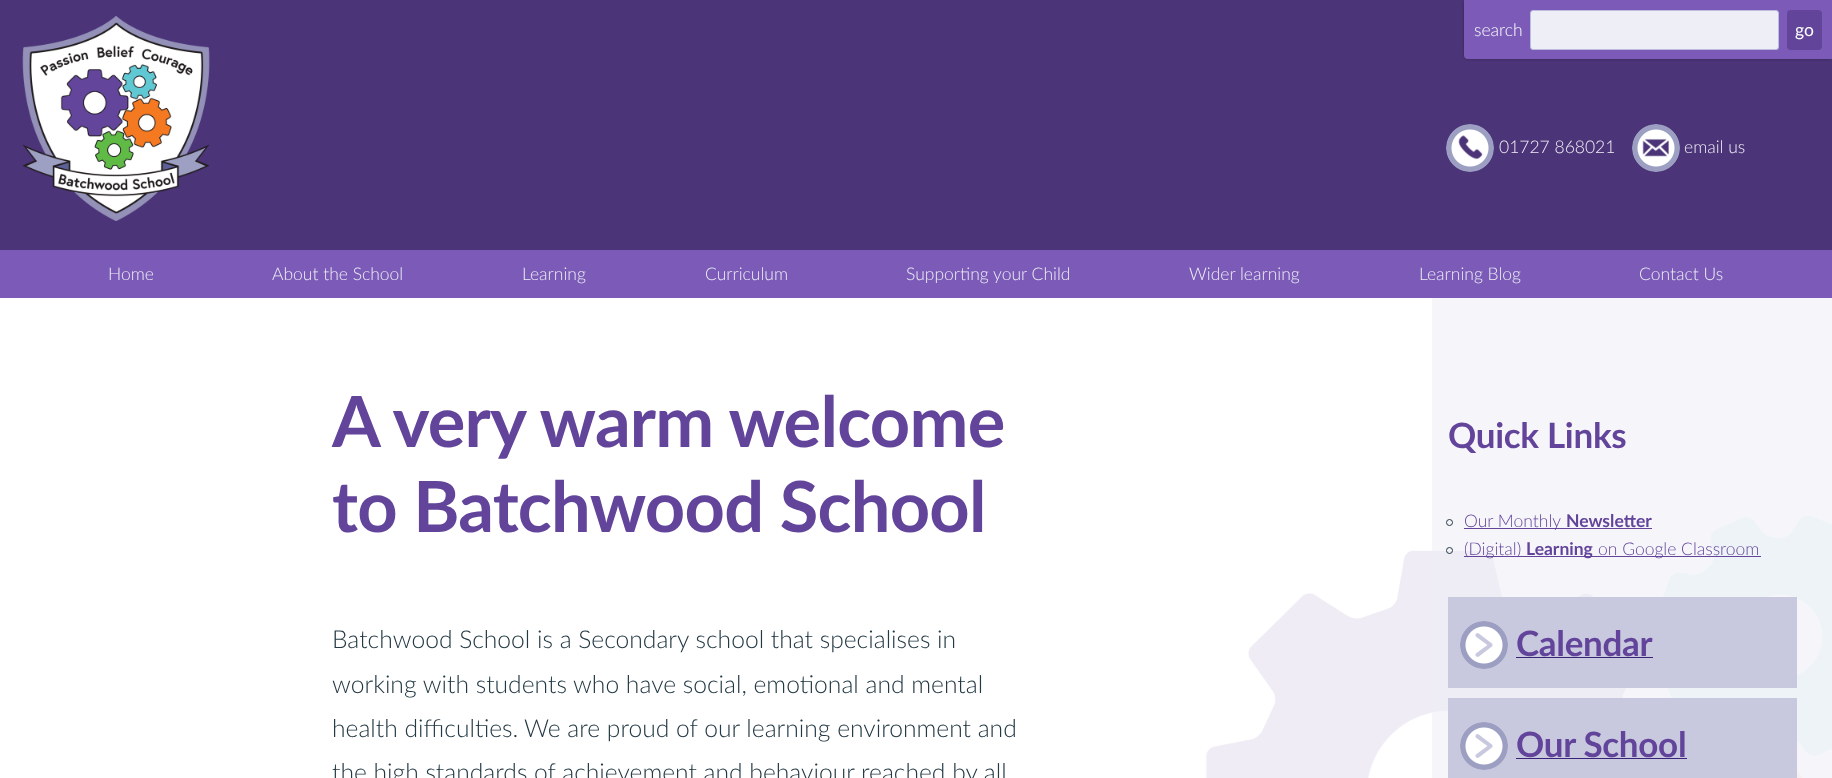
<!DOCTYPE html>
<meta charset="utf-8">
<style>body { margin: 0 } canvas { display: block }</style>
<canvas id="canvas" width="1832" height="778"></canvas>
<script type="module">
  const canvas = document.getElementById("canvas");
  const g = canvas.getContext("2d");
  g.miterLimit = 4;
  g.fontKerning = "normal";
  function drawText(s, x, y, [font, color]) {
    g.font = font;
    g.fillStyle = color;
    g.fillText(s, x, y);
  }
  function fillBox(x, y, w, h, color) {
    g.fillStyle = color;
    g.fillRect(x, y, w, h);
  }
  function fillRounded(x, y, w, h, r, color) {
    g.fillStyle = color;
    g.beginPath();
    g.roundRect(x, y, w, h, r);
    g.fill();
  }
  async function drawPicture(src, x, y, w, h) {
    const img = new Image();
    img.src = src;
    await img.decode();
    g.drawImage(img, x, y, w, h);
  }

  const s1 = ["300 17.5px Lato", "#FFFFFF"];
  const s2 = ["17.5px Lato", "#FFFFFF"];
  const s3 = ["300 17.5px Lato", "#EEEEF6"];
  const s4 = ["bold 70.4px Lato", "#62449B"];
  const s5 = ["300 24.65px Lato", "#223843"];
  const s6 = ["bold 35px Lato", "#62449B"];
  const s7 = ["300 17.5px Lato", "#62449B"];
  const s8 = ["bold 17.5px Lato", "#62449B"];

  fillBox(0, 0, 1832, 778, "#4C3478");
  g.fillStyle = "rgba(0, 0, 0, 0.3)";
  g.filter = "blur(1.5px)";
  g.beginPath();
  g.roundRect(1464, 0, 368, 59, 4);
  g.fill();
  g.filter = "none";
  g.fillStyle = "#7B5BB7";
  g.beginPath();
  g.roundRect(1464, 0, 368, 59, [0, 0, 0, 4]);
  g.fill();
  drawText("search", 1474, 36, s1);
  g.fillStyle = "#EEEEF6";
  g.beginPath();
  g.roundRect(1530.5, 10.5, 248, 39, 2.5);
  g.fill();
  g.strokeStyle = "#BCBCDC";
  g.stroke();
  fillRounded(1787, 10, 35, 40, 4, "#62449B");
  drawText("go", 1795, 36, s2);
  await drawPicture("pic1.png", 22, 16, 188, 205);
  await drawPicture("pic2.png", 1446, 124, 48, 48);
  drawText("01727 868021", 1499, 153, s3);
  await drawPicture("pic3.png", 1632, 124, 48, 48);
  drawText("email us", 1684, 153, s3);
  fillBox(0, 250, 1832, 48, "#7B5BB7");
  drawText("Home", 108, 280, s3);
  drawText("About the School", 272, 280, s3);
  drawText("Learning", 522, 280, s3);
  drawText("Curriculum", 705, 280, s3);
  drawText("Supporting your Child", 906, 280, s3);
  drawText("Wider learning", 1189, 280, s3);
  drawText("Learning Blog", 1419, 280, s3);
  drawText("Contact Us", 1639, 280, s3);
  fillBox(0, 298, 1832, 480, "#FFFFFF");
  await drawPicture("pic4.png", 1206, 515, 626, 263);
  g.letterSpacing = "-0.75px";
  drawText("A very warm welcome", 332, 447, s4);
  drawText("to Batchwood School", 332, 532, s4);
  g.letterSpacing = "0px";
  drawText("Batchwood School is a Secondary school that specialises in", 332, 648, s5);
  drawText("working with students who have social, emotional and mental", 332, 693, s5);
  drawText("health difficulties.", 332, 737, s5);
  drawText("We are proud of our learning environment and", 524, 737, s5);
  drawText("the high standards of achievement and behaviour reached by all", 332, 781, s5);
  fillBox(1432, 298, 400, 480, "rgba(238, 238, 246, 0.5)");
  g.letterSpacing = "-0.3px";
  drawText("Quick Links", 1448, 448, s6);
  g.beginPath();
  g.arc(1449.5, 522.5, 3, 0, Math.PI * 2);
  g.strokeStyle = "#223843";
  g.stroke();
  fillBox(1464, 528, 188, 1, "#62449B");
  g.letterSpacing = "0px";
  drawText("Our Monthly", 1464, 527, s7);
  drawText("Newsletter", 1566, 527, s8);
  g.beginPath();
  g.arc(1449.5, 550.5, 3, 0, Math.PI * 2);
  g.stroke();
  fillBox(1464, 556, 129, 1, "#62449B");
  drawText("(Digital)", 1464, 555, s7);
  drawText("Learning", 1526, 555, s8);
  fillBox(1593, 556, 168, 1, "#62449B");
  drawText("on Google Classroom", 1598, 555, s7);
  fillBox(1448, 597, 349, 91, "#C8C8DE");
  await drawPicture("pic5.png", 1460, 621, 48, 48);
  g.letterSpacing = "-0.3px";
  drawText("Calendar", 1516, 656, s6);
  fillBox(1516, 657, 137, 1, "#3A2276");
  fillBox(1448, 698, 349, 80, "#C8C8DE");
  await drawPicture("pic6.png", 1460, 722, 48, 48);
  drawText("Our School", 1516, 757, s6);
  fillBox(1516, 758, 171, 1, "#3A2276");
</script>
